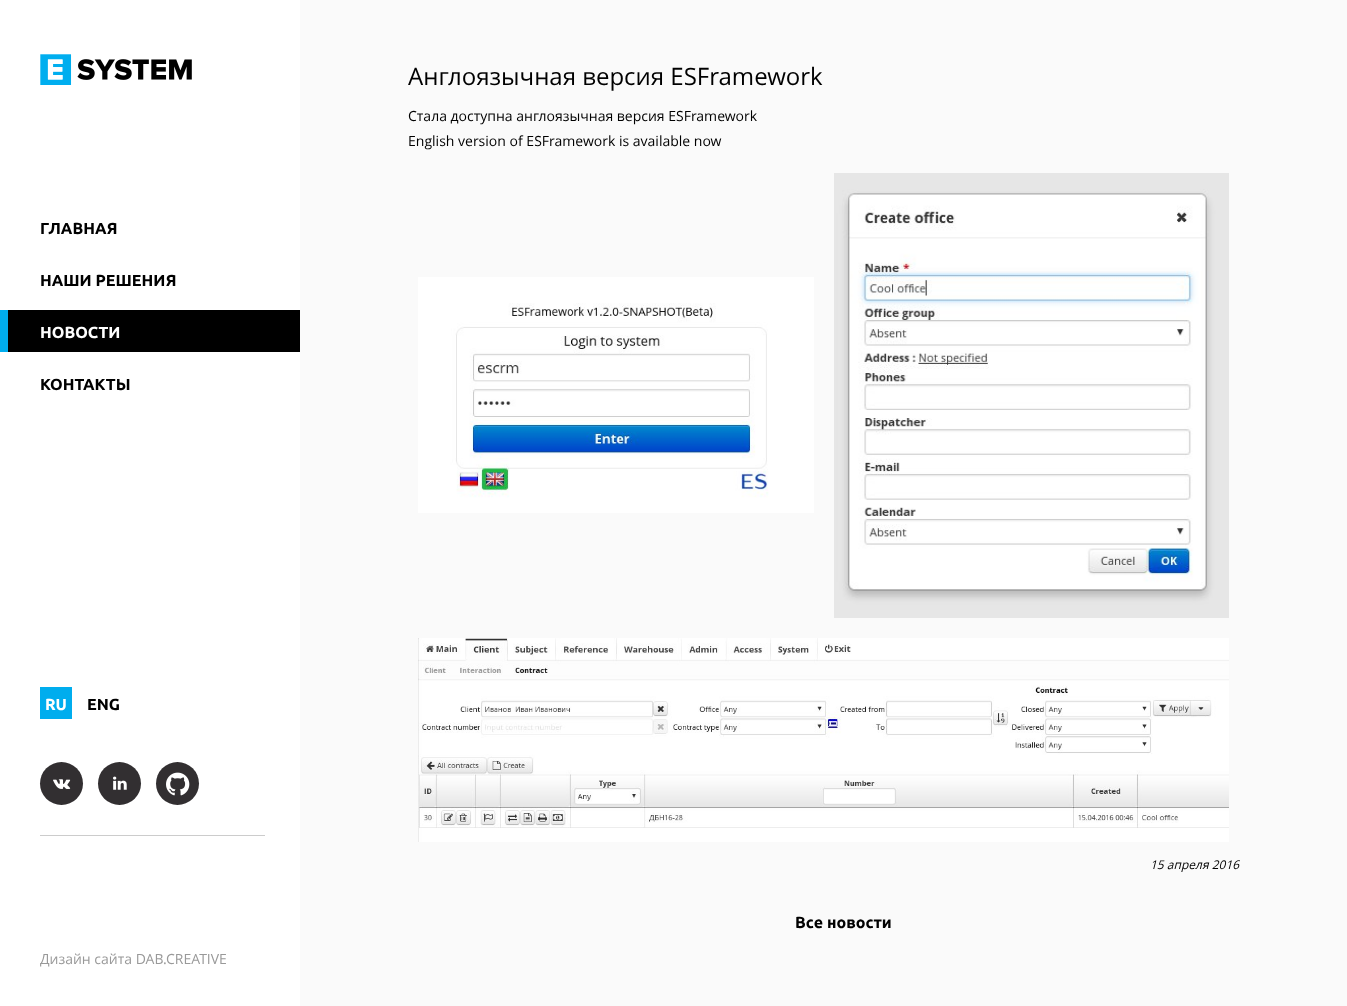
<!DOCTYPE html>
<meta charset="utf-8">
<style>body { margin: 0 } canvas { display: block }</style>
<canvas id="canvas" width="1347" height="1006"></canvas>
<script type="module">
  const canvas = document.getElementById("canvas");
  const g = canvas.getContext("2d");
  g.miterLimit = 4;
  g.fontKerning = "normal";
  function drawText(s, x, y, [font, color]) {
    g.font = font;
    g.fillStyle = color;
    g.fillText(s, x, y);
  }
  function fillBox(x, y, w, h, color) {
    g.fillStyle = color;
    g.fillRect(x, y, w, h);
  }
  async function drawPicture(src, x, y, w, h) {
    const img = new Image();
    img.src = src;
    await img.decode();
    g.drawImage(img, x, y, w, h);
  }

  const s1 = ["bold 16px Ubuntu", "#000000"];
  const s2 = ["bold 16px Ubuntu", "#FFFFFF"];
  const s3 = ["14px Open Sans", "#999999"];
  const s4 = ["24px Open Sans", "#000000"];
  const s5 = ["14px Open Sans", "#000000"];
  const s6 = ["italic 12px Open Sans", "#000000"];

  fillBox(0, 0, 1347, 1006, "#FFFFFF");
  await drawPicture("pic1.png", 40, 54, 152, 31);
  drawText("ГЛАВНАЯ", 40, 234, s1);
  drawText("НАШИ РЕШЕНИЯ", 40, 286, s1);
  fillBox(8, 310, 292, 42, "#000000");
  fillBox(0, 310, 8, 42, "#00ADEE");
  drawText("НОВОСТИ", 40, 338, s2);
  drawText("КОНТАКТЫ", 40, 390, s1);
  fillBox(40, 687, 32, 32, "#00ADEE");
  drawText("RU", 45, 710, s2);
  drawText("ENG", 87, 710, s1);
  fillBox(40, 835, 225, 1, "#CCCCCC");
  g.fillStyle = "#322F31";
  g.beginPath();
  g.arc(61.5, 783.5, 21.5, 0, Math.PI * 2);
  g.fill();
  await drawPicture("pic2.png", 53, 779, 18, 10);
  g.beginPath();
  g.arc(119.5, 783.5, 21.5, 0, Math.PI * 2);
  g.fill();
  await drawPicture("pic3.png", 113, 776, 14, 14);
  g.beginPath();
  g.arc(177.5, 783.5, 21.5, 0, Math.PI * 2);
  g.fill();
  await drawPicture("pic4.png", 166, 772, 24, 24);
  drawText("Дизайн сайта DAB.CREATIVE", 40, 964, s3);
  fillBox(300, 0, 1047, 1006, "#FAFAFA");
  drawText("Англоязычная версия ESFramework", 408, 85, s4);
  drawText("Стала доступна англоязычная версия ESFramework", 408, 121, s5);
  drawText("English version of ESFramework is available now", 408, 146, s5);
  await drawPicture("pic5.png", 418, 277, 396, 236);
  await drawPicture("pic6.png", 834, 173, 395, 445);
  await drawPicture("pic7.png", 418, 638, 811, 204);
  drawText("15 апреля 2016", 1150, 869, s6);
  drawText("Все новости", 795, 928, s1);
</script>
